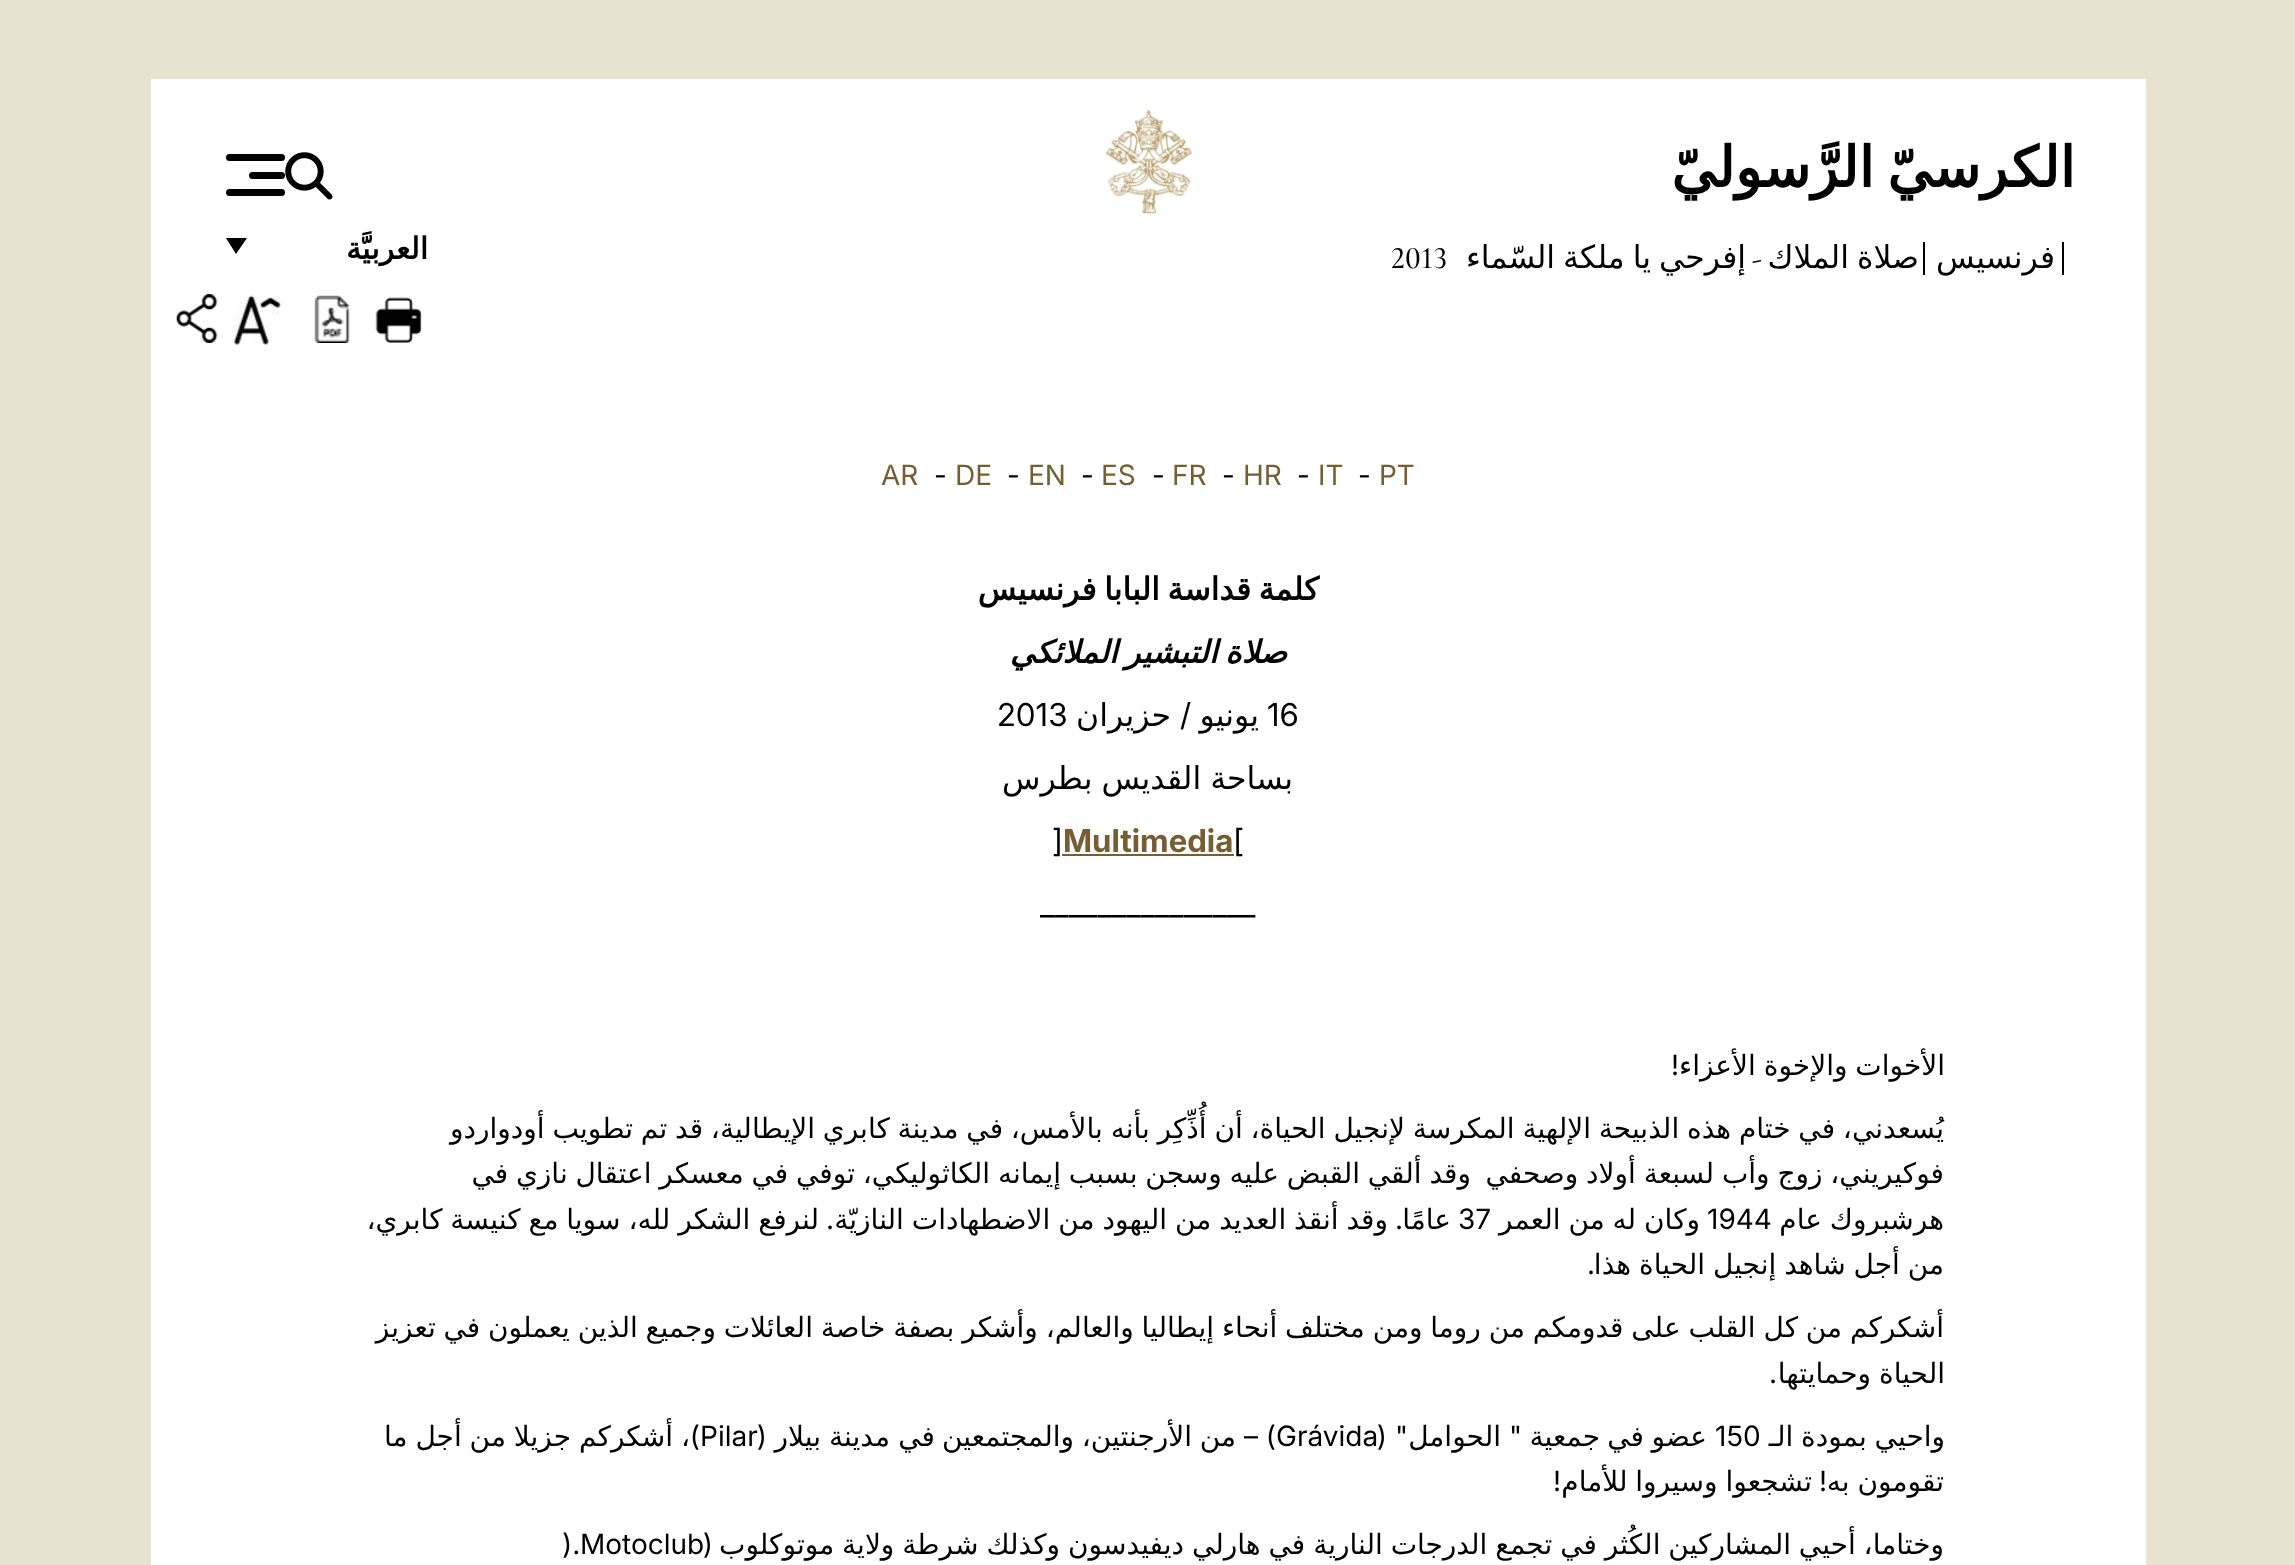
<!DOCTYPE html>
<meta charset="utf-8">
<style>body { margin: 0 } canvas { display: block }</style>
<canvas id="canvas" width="2295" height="1565"></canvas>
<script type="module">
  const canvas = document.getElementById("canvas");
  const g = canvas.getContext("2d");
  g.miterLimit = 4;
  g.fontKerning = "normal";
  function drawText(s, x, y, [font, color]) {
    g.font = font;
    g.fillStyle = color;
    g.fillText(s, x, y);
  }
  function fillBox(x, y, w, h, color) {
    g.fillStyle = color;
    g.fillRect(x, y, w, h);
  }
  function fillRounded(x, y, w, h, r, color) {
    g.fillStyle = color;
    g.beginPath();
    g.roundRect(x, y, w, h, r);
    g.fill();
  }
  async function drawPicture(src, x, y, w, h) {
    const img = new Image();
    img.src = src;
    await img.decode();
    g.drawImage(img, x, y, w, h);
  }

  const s1 = ["bold 56px DejaVu Sans", "#000000"];
  const s2 = ["bold 30px DejaVu Sans", "#000000"];
  const s3 = ["31.5px DejaVu Sans", "#000000"];
  const s4 = ["500 31.5px Cormorant Garamond", "#000000"];
  const s5 = ["500 31.5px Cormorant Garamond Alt", "#000000"];
  const s6 = ["28px 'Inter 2'", "#765E32"];
  const s7 = ["28px 'Inter 2'", "#000000"];
  const s8 = ["28px Inter", "#765E32"];
  const s9 = ["bold 31.5px DejaVu Sans", "#000000"];
  const s10 = ["italic bold 31.5px DejaVu Sans", "#000000"];
  const s11 = ["31.5px 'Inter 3'", "#000000"];
  const s12 = ["bold 31.5px Inter", "#765E32"];
  const s13 = ["31.5px Inter", "#000000"];
  const s14 = ["28px DejaVu Sans", "#000000"];
  const s15 = ["28px Inter", "#000000"];

  fillBox(0, 0, 2295, 1565, "#E8E2D1");
  fillBox(151, 79, 1995, 1486, "#FFFFFF");
  g.wordSpacing = "-5px";
  g.direction = "rtl";
  drawText("الكرسيّ الرَّسوليّ", 2075, 187, s1);
  await drawPicture("pic1.png", 1105, 110, 88, 104);
  await drawPicture("pic2.png", 285, 152, 48, 48);
  fillRounded(226, 154, 59, 7, 3.5, "#000000");
  fillRounded(249, 172, 36, 7, 3.5, "#000000");
  fillRounded(226, 189, 59, 7, 3.5, "#000000");
  g.wordSpacing = "0px";
  drawText("العربيَّة", 428, 259, s2);
  g.beginPath();
  g.moveTo(226, 238);
  g.lineTo(247, 238);
  g.lineTo(236, 254);
  g.closePath();
  g.fill();
  fillBox(2062, 242, 2, 33, "#000000");
  drawText("فرنسيس", 2055, 268, s3);
  fillBox(1923, 242, 2, 33, "#000000");
  g.wordSpacing = "-2px";
  drawText("صلاة الملاك", 1919, 268, s3);
  g.wordSpacing = "0px";
  drawText("-", 1762, 268, s4);
  g.wordSpacing = "-2px";
  drawText("إفرحي يا ملكة السّماء", 1746, 268, s3);
  g.wordSpacing = "0px";
  g.direction = "ltr";
  drawText("2013", 1391, 268, s5);
  await drawPicture("pic3.png", 375, 297, 47, 46);
  await drawPicture("pic4.png", 314, 295, 36, 48);
  await drawPicture("pic5.png", 233, 295, 48, 50);
  await drawPicture("pic6.png", 176, 294, 42, 49);
  drawText("PT", 1379, 485, s6);
  drawText("-", 1358, 485, s7);
  drawText("IT", 1318, 485, s6);
  drawText("-", 1297, 485, s7);
  drawText("HR", 1243, 485, s8);
  drawText("-", 1222, 485, s7);
  drawText("FR", 1172, 485, s8);
  drawText("-", 1152, 485, s7);
  drawText("ES", 1101, 485, s8);
  drawText("-", 1081, 485, s7);
  drawText("EN", 1028, 485, s8);
  drawText("-", 1007, 485, s7);
  drawText("DE", 955, 485, s8);
  drawText("-", 934, 485, s7);
  drawText("AR", 881, 485, s8);
  g.wordSpacing = "-2.5px";
  g.direction = "rtl";
  drawText("كلمة قداسة البابا فرنسيس", 1319, 600, s9);
  drawText("صلاة التبشير الملائكي", 1287, 663, s10);
  g.wordSpacing = "0px";
  g.direction = "ltr";
  drawText("16", 1267, 726, s11);
  g.direction = "rtl";
  drawText("يونيو", 1259, 726, s3);
  drawText("/", 1191, 726, s11);
  drawText("حزيران", 1171, 726, s3);
  g.direction = "ltr";
  drawText("2013", 997, 726, s11);
  g.wordSpacing = "-1px";
  g.direction = "rtl";
  drawText("بساحة القديس بطرس", 1293, 789, s3);
  g.wordSpacing = "0px";
  g.direction = "ltr";
  drawText("[", 1233, 852, s11);
  drawText("Multimedia", 1063, 852, s12);
  fillBox(1062, 854, 172, 2, "#765E32");
  drawText("]", 1052, 852, s11);
  drawText("_______________", 1040, 915, s13);
  g.wordSpacing = "-1px";
  g.direction = "rtl";
  drawText("الأخوات والإخوة الأعزاء", 1945, 1075, s14);
  g.wordSpacing = "0px";
  drawText("!", 1679, 1075, s15);
  g.wordSpacing = "-1.1px";
  drawText("يُسعدني، في ختام هذه الذبيحة الإلهية المكرسة لإنجيل الحياة، أن أُذِّكِر بأنه بالأمس، في مدينة كابري الإيطالية، قد تم تطويب أودواردو", 1944, 1138, s14);
  drawText("فوكيريني، زوج وأب لسبعة أولاد وصحفي", 1944, 1183, s14);
  drawText("وقد ألقي القبض عليه وسجن بسبب إيمانه الكاثوليكي، توفي في معسكر اعتقال نازي في", 1471, 1183, s14);
  g.wordSpacing = "-1px";
  drawText("هرشبروك عام", 1944, 1229, s14);
  g.wordSpacing = "0px";
  g.direction = "ltr";
  drawText("1944", 1707, 1229, s15);
  g.wordSpacing = "-1px";
  g.direction = "rtl";
  drawText("وكان له من العمر", 1700, 1229, s14);
  g.wordSpacing = "0px";
  g.direction = "ltr";
  drawText("37", 1458, 1229, s15);
  g.direction = "rtl";
  drawText("عامًا", 1451, 1229, s14);
  drawText(".", 1403, 1229, s15);
  g.wordSpacing = "-1px";
  drawText("وقد أنقذ العديد من اليهود من الاضطهادات النازيّة", 1388, 1229, s14);
  g.wordSpacing = "0px";
  drawText(".", 834, 1229, s15);
  g.wordSpacing = "-1px";
  drawText("لنرفع الشكر لله، سويا مع كنيسة كابري،", 819, 1229, s14);
  drawText("من أجل شاهد إنجيل الحياة هذا", 1944, 1274, s14);
  g.wordSpacing = "0px";
  drawText(".", 1595, 1274, s15);
  g.wordSpacing = "-1.1px";
  drawText("أشكركم من كل القلب على قدومكم من روما ومن مختلف أنحاء إيطاليا والعالم، وأشكر بصفة خاصة العائلات وجميع الذين يعملون في تعزيز", 1944, 1337, s14);
  g.wordSpacing = "-1px";
  drawText("الحياة وحمايتها", 1945, 1383, s14);
  g.wordSpacing = "0px";
  drawText(".", 1777, 1383, s15);
  drawText("الأرجنتين،", 1192, 1446, s14);
  g.wordSpacing = "-1px";
  drawText("، أشكركم جزيلا من أجل ما", 690, 1446, s14);
  drawText("واحيي بمودة الـ", 1945, 1446, s14);
  g.wordSpacing = "0px";
  g.direction = "ltr";
  drawText("150", 1715, 1446, s15);
  g.direction = "rtl";
  drawText("عضو", 1707, 1446, s14);
  drawText("في", 1644, 1446, s14);
  drawText("جمعية", 1600, 1446, s14);
  drawText("\"", 1522, 1446, s15);
  drawText("الحوامل", 1501, 1446, s14);
  drawText("\" (", 1408, 1446, s15);
  g.direction = "ltr";
  drawText("Grávida", 1276, 1446, s15);
  g.direction = "rtl";
  drawText(") –", 1276, 1446, s15);
  drawText("من", 1236, 1446, s14);
  drawText("والمجتمعين", 1074, 1446, s14);
  drawText("في", 935, 1446, s14);
  drawText("مدينة", 890, 1446, s14);
  drawText("بيلار", 821, 1446, s14);
  drawText("(", 767, 1446, s15);
  g.direction = "ltr";
  drawText("Pilar", 700, 1446, s15);
  g.direction = "rtl";
  drawText(")", 700, 1446, s15);
  g.wordSpacing = "-1px";
  drawText("تقومون به", 1944, 1491, s14);
  g.wordSpacing = "0px";
  drawText("!", 1827, 1491, s15);
  g.wordSpacing = "-1px";
  drawText("تشجعوا وسيروا للأمام", 1812, 1491, s14);
  g.wordSpacing = "0px";
  drawText("!", 1561, 1491, s15);
  g.wordSpacing = "-1px";
  drawText("وختاما، أحيي المشاركين الكُثر في تجمع الدرجات النارية في هارلي ديفيدسون وكذلك شرطة ولاية موتوكلوب", 1944, 1554, s14);
  g.wordSpacing = "0px";
  drawText("(", 713, 1554, s15);
  g.direction = "ltr";
  drawText("Motoclub", 580, 1554, s15);
  drawText(").", 562, 1554, s15);
</script>
